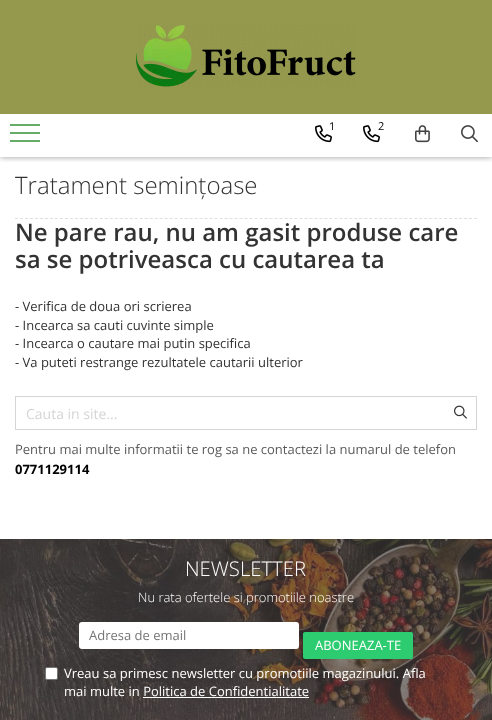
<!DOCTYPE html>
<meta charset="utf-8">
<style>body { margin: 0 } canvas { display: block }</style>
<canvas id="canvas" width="492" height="720"></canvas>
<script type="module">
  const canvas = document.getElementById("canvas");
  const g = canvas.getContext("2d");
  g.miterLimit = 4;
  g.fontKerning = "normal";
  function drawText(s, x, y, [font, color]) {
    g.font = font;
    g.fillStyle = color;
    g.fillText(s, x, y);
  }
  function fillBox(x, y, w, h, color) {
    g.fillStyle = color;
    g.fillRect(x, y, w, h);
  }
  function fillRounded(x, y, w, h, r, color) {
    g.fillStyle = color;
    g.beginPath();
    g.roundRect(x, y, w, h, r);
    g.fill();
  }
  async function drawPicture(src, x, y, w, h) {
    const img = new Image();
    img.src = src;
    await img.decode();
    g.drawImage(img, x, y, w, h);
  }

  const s1 = ["11px Open Sans", "#000000"];
  const s2 = ["300 24px Open Sans", "#333333"];
  const s3 = ["600 24px Open Sans", "#333333"];
  const s4 = ["13px Open Sans", "#333333"];
  const s5 = ["14px Open Sans", "#D5D5D5"];
  const s6 = ["13px Open Sans", "#5B5B5B"];
  const s7 = ["bold 13px Open Sans", "#000000"];
  const s8 = ["300 20.25px Open Sans", "#FFFFFF"];
  const s9 = ["300 13px Open Sans", "#FFFFFF"];
  const s10 = ["13px Open Sans", "#757575"];
  const s11 = ["13px Open Sans", "#FFFFFF"];

  fillBox(0, 0, 492, 720, "#FFFFFF");
  g.save();
  g.beginPath();
  g.rect(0, 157, 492, 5);
  g.clip();
  g.fillStyle = "rgba(0, 0, 0, 0.4)";
  g.filter = "blur(3px)";
  g.beginPath();
  g.rect(0, 0, 492, 157);
  g.fill();
  g.filter = "none";
  g.restore();
  fillBox(0, 0, 492, 114, "#95994E");
  await drawPicture("pic1.png", 136, 25, 220, 62);
  fillBox(10, 132, 30, 2, "#65AC66");
  fillBox(10, 124, 30, 2, "#65AC66");
  fillBox(10, 140, 30, 2, "#65AC66");
  await drawPicture("pic2.png", 315, 125, 17, 18);
  drawText("1", 329, 130, s1);
  await drawPicture("pic2.png", 363, 125, 17, 18);
  drawText("2", 378, 130, s1);
  await drawPicture("pic3.png", 415, 125, 15, 18);
  await drawPicture("pic4.png", 461, 125, 17, 18);
  drawText("Tratament semințoase", 15, 194, s2);
  g.beginPath();
  g.moveTo(15, 218.5);
  g.lineTo(477, 218.5);
  g.strokeStyle = "#DFDFDF";
  g.setLineDash([3, 1.99]);
  g.stroke();
  drawText("Ne pare rau, nu am gasit produse care", 15, 241, s3);
  drawText("sa se potriveasca cu cautarea ta", 15, 268, s3);
  drawText("- Verifica de doua ori scrierea", 15, 311, s4);
  drawText("- Incearca sa cauti cuvinte simple", 15, 330, s4);
  drawText("- Incearca o cautare mai putin specifica", 15, 348, s4);
  drawText("- Va puteti restrange rezultatele cautarii ulterior", 15, 367, s4);
  g.strokeStyle = "#D5D5D5";
  g.setLineDash([]);
  g.strokeRect(15.5, 396.5, 461, 33);
  drawText("Cauta in site...", 26, 419, s5);
  await drawPicture("pic5.png", 454, 405, 13, 14);
  drawText("Pentru mai multe informatii te rog sa ne contactezi la numarul de telefon", 15, 454, s6);
  drawText("0771129114", 15, 474, s7);
  await drawPicture("pic6.png", 0, 539, 492, 181);
  drawText("NEWSLETTER", 185, 576, s8);
  drawText("Nu rata ofertele si promotiile noastre", 138, 602, s9);
  fillRounded(79, 622, 220, 27, 3, "#FFFFFF");
  drawText("Adresa de email", 89, 640, s10);
  fillRounded(303, 632, 110, 27, 2, "#2ECC71");
  drawText("ABONEAZA-TE", 315, 650, s11);
  g.beginPath();
  g.roundRect(45.5, 667.5, 12, 12, 1.5);
  g.fill();
  g.strokeStyle = "#767676";
  g.stroke();
  drawText("Vreau sa primesc newsletter cu promotiile magazinului. Afla", 64, 678, s11);
  drawText("mai multe in Politica de Confidentialitate", 64, 696, s11);
  fillBox(143, 697, 166, 1, "#FFFFFF");
</script>
